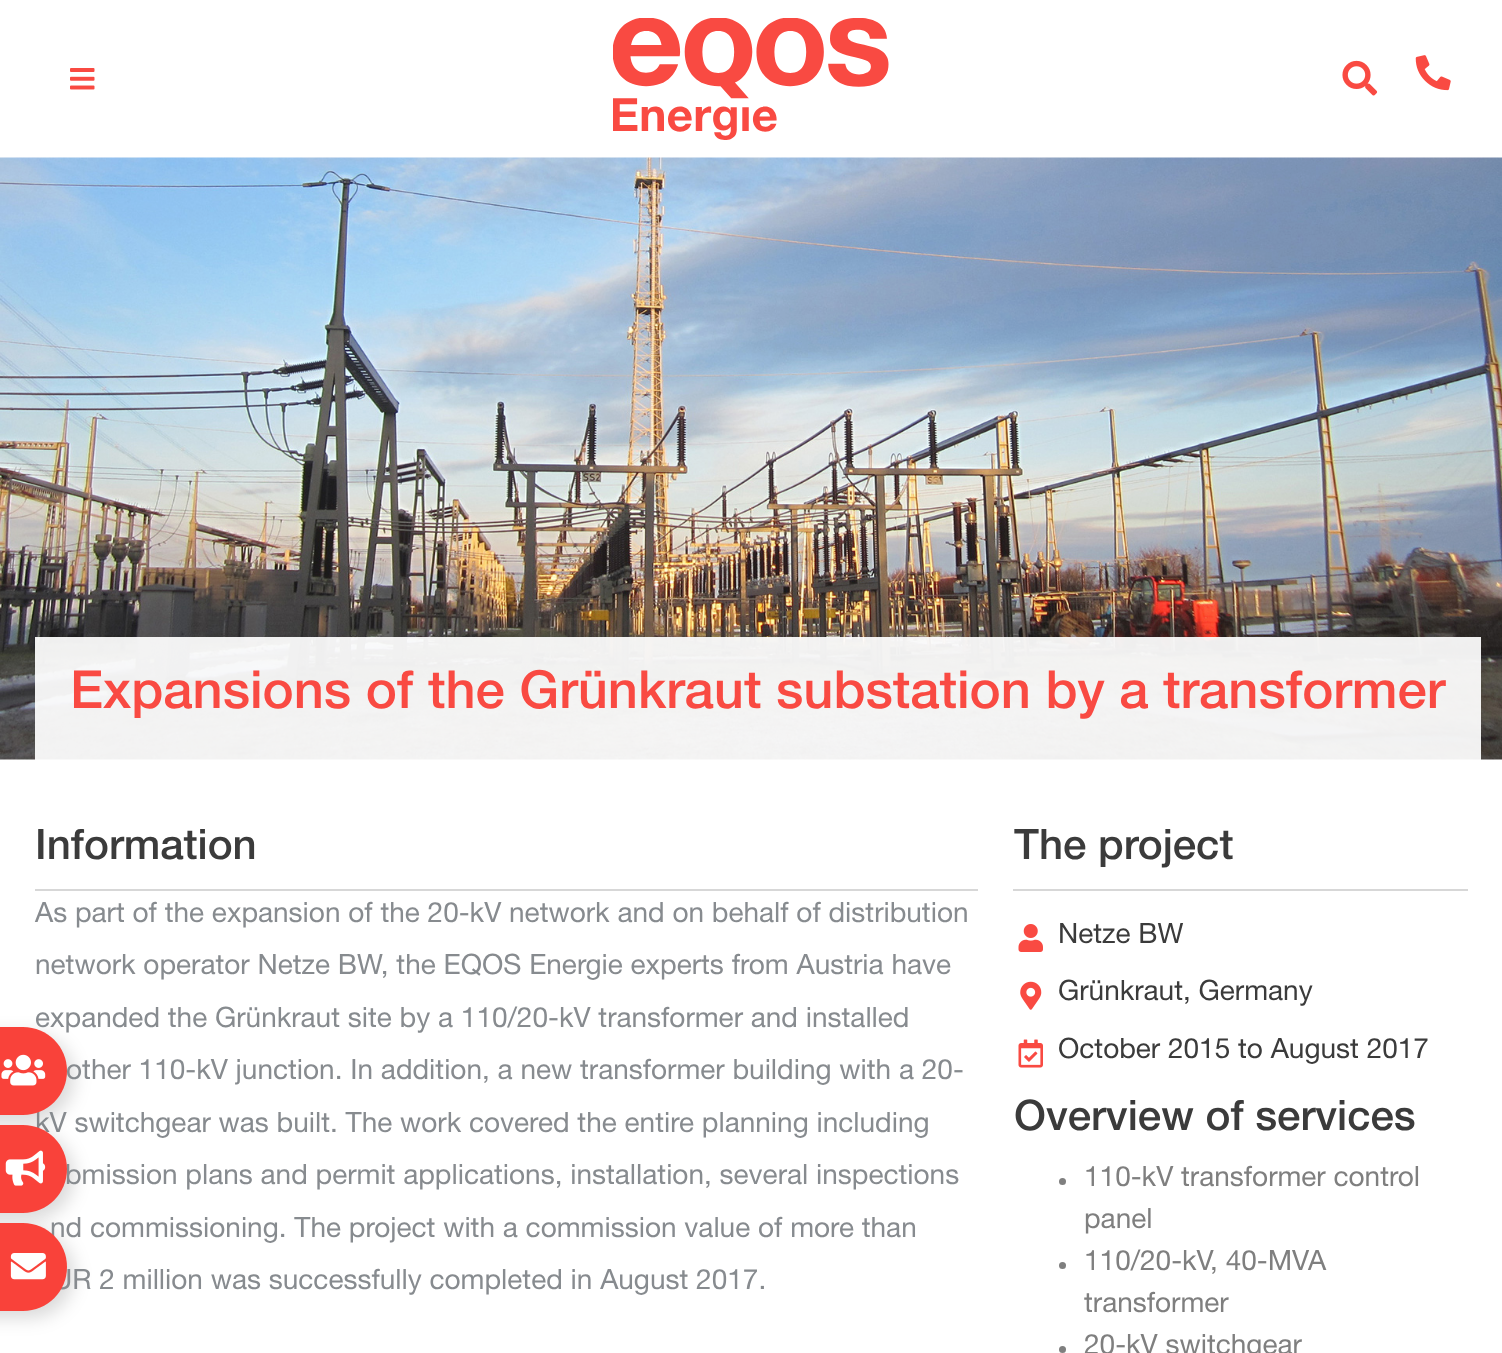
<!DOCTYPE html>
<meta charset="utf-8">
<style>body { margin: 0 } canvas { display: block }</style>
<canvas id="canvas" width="1502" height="1353"></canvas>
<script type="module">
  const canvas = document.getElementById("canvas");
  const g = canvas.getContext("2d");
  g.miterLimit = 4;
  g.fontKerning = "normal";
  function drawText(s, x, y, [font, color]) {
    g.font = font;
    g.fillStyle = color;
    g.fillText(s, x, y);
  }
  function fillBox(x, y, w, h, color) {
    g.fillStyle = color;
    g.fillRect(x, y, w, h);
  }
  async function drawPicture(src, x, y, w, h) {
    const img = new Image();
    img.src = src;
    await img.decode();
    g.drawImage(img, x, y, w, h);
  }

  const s1 = ["28px Helvetica Neue", "#878B8F"];
  const s2 = ["500 52.5px Helvetica Neue", "#F94A42"];
  const s3 = ["500 42px Helvetica Neue", "#3B3B3B"];
  const s4 = ["28px Helvetica Neue", "#3B3B3B"];
  const s5 = ["28px Helvetica Neue", "#7F7F7F"];

  fillBox(0, 0, 1502, 1353, "#FFFFFF");
  g.fillStyle = "rgba(0, 0, 0, 0.15)";
  g.filter = "blur(9px)";
  g.beginPath();
  g.roundRect(-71, 1034, 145, 88, 44);
  g.fill();
  g.filter = "none";
  drawText("expanded the Grünkraut site by a 110/20-kV transformer and installed", 35, 1027, s1);
  drawText("other 110-kV junction. In addition, a new transformer building with a 20-", 66, 1079, s1);
  drawText("kV switchgear was built. The work covered the entire planning including", 35, 1132, s1);
  g.fillStyle = "#F9423A";
  g.beginPath();
  g.moveTo(-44, 1027);
  g.lineTo(23, 1027);
  g.bezierCurveTo(47.5, 1027, 67, 1046.5, 67, 1071);
  g.bezierCurveTo(67, 1095.5, 47.5, 1115, 23, 1115);
  g.lineTo(-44, 1115);
  g.closePath();
  g.fill();
  await drawPicture("pic1.png", 1, 1054, 45, 32);
  g.fillStyle = "rgba(0, 0, 0, 0.15)";
  g.filter = "blur(9px)";
  g.beginPath();
  g.roundRect(-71, 1132, 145, 88, 44);
  g.fill();
  g.filter = "none";
  drawText("bmission plans and permit applications, installation, several inspections", 65, 1184, s1);
  g.fillStyle = "#F9423A";
  g.beginPath();
  g.moveTo(-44, 1125);
  g.lineTo(23, 1125);
  g.bezierCurveTo(47.5, 1125, 67, 1144.5, 67, 1169);
  g.bezierCurveTo(67, 1193.5, 47.5, 1213, 23, 1213);
  g.lineTo(-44, 1213);
  g.closePath();
  g.fill();
  await drawPicture("pic2.png", 5, 1150, 41, 36);
  g.fillStyle = "rgba(0, 0, 0, 0.15)";
  g.filter = "blur(9px)";
  g.beginPath();
  g.roundRect(-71, 1230, 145, 88, 44);
  g.fill();
  g.filter = "none";
  drawText("nd commissioning. The project with a commission value of more than", 50, 1237, s1);
  drawText("UR 2 million was successfully completed in August 2017.", 52, 1289, s1);
  g.fillStyle = "#F9423A";
  g.beginPath();
  g.moveTo(-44, 1223);
  g.lineTo(23, 1223);
  g.bezierCurveTo(47.5, 1223, 67, 1242.5, 67, 1267);
  g.bezierCurveTo(67, 1291.5, 47.5, 1311, 23, 1311);
  g.lineTo(-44, 1311);
  g.closePath();
  g.fill();
  await drawPicture("pic3.png", 10, 1253, 36, 27);
  await drawPicture("pic4.png", 70, 68, 25, 22);
  await drawPicture("pic5.png", 613, 18, 276, 122);
  await drawPicture("pic6.png", 1342, 60, 36, 36);
  await drawPicture("pic7.png", 1415, 55, 36, 36);
  await drawPicture("pic8.png", 0, 157, 1502, 603);
  fillBox(35, 637, 1446, 123, "rgba(255, 255, 255, 0.93)");
  drawText("Expansions of the Grünkraut substation by a transformer", 70, 708, s2);
  fillBox(35, 889, 943, 2, "#D7D7D7");
  drawText("Information", 35, 859, s3);
  drawText("As part of the expansion of the 20-kV network and on behalf of distribution", 35, 922, s1);
  drawText("network operator Netze BW, the EQOS Energie experts from Austria have", 35, 974, s1);
  fillBox(1013, 889, 455, 2, "#D7D7D7");
  drawText("The project", 1014, 859, s3);
  await drawPicture("pic9.png", 1018, 924, 25, 28);
  drawText("Netze BW", 1058, 943, s4);
  await drawPicture("pic10.png", 1020, 981, 22, 29);
  drawText("Grünkraut, Germany", 1058, 1000, s4);
  await drawPicture("pic11.png", 1018, 1039, 25, 29);
  drawText("October 2015 to August 2017", 1058, 1058, s4);
  drawText("Overview of services", 1014, 1130, s3);
  g.fillStyle = "#7F7F7F";
  g.beginPath();
  g.arc(1062.5, 1181.5, 3.5, 0, Math.PI * 2);
  g.fill();
  drawText("110-kV transformer control", 1084, 1186, s5);
  drawText("panel", 1084, 1228, s5);
  g.beginPath();
  g.arc(1062.5, 1265.5, 3.5, 0, Math.PI * 2);
  g.fill();
  drawText("110/20-kV, 40-MVA", 1084, 1270, s5);
  drawText("transformer", 1084, 1312, s5);
  g.beginPath();
  g.arc(1062.5, 1349.5, 3.5, 0, Math.PI * 2);
  g.fill();
  drawText("20-kV switchgear", 1084, 1354, s5);
</script>
